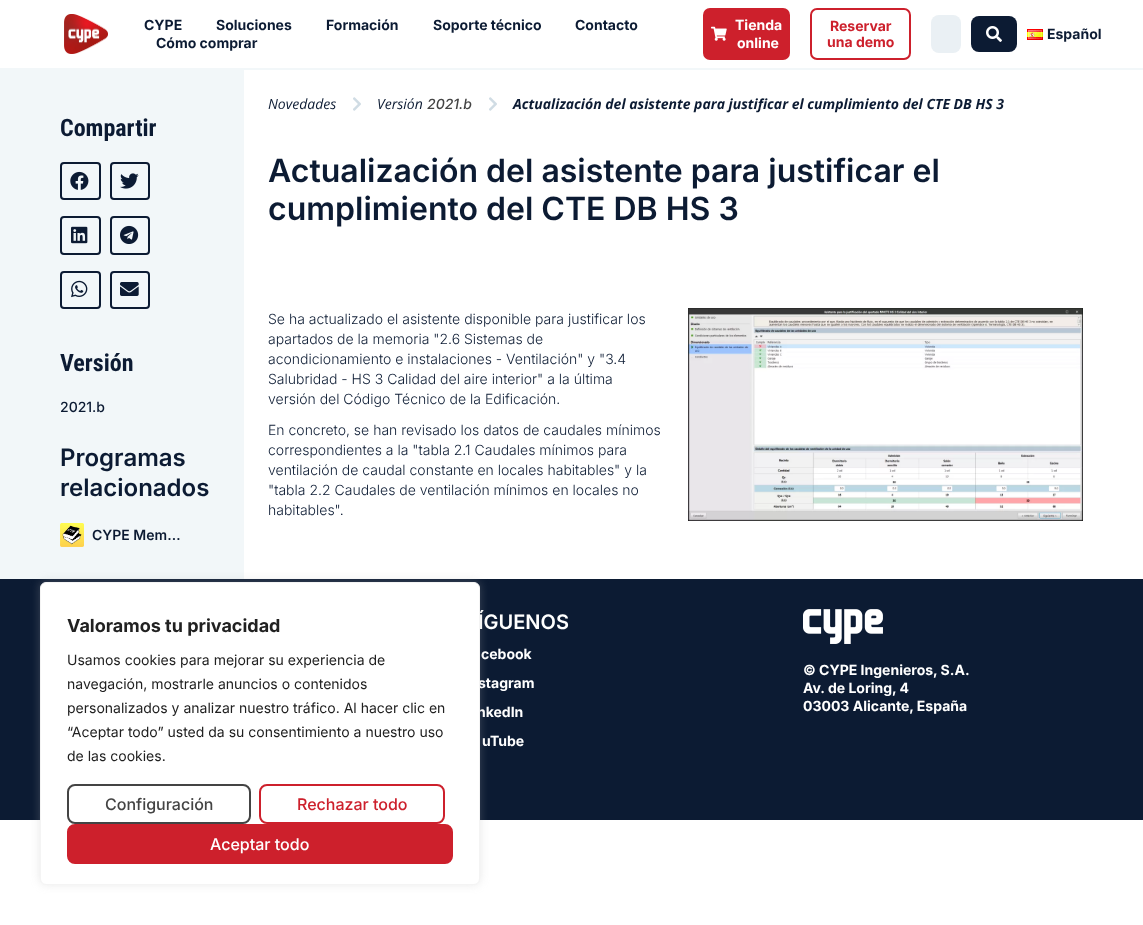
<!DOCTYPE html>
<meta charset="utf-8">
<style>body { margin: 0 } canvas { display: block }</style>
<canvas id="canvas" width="1143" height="925"></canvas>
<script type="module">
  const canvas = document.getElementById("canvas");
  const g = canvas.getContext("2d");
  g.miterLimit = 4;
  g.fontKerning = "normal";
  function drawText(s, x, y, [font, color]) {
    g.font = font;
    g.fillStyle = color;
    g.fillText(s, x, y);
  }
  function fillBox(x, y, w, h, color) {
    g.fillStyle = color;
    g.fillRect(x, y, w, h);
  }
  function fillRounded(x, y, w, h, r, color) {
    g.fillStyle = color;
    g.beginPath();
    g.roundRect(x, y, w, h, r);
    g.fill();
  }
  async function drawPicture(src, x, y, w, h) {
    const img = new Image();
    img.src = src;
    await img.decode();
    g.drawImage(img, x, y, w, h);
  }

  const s1 = ["bold 14px Inter", "#0C1B33"];
  const s2 = ["bold 14px Inter", "#FFFFFF"];
  const s3 = ["bold 14px Inter", "#CD202C"];
  const s4 = ["bold 24px Roboto Condensed", "#0C1B33"];
  const s5 = ["500 14px Inter", "#0C1B33"];
  const s6 = ["600 24px Inter", "#0C1B33"];
  const s7 = ["600 14px Inter", "#0C1B33"];
  const s8 = ["italic 14px Open Sans", "#0C1B33"];
  const s9 = ["italic 500 14px Inter", "#444444"];
  const s10 = ["italic bold 14px Open Sans", "#0C1B33"];
  const s11 = ["600 32px Inter", "#0C1B33"];
  const s12 = ["300 14px Inter", "#0C1B33"];
  const s13 = ["600 20px Inter", "#FFFFFF"];
  const s14 = ["bold 18px Inter", "#212121"];
  const s15 = ["14px Inter", "#212121"];
  const s16 = ["500 16px Inter", "#444444"];
  const s17 = ["500 16px Inter", "#CD202C"];
  const s18 = ["500 16px Inter", "#FFFFFF"];

  fillBox(0, 0, 1143, 925, "#FFFFFF");
  fillBox(0, 68, 1143, 2, "#F2F7F9");
  await drawPicture("pic1.png", 64, 14, 44, 40);
  drawText("CYPE", 144, 30, s1);
  drawText("Soluciones", 216, 30, s1);
  drawText("Formación", 326, 30, s1);
  drawText("Soporte técnico", 433, 30, s1);
  drawText("Contacto", 575, 30, s1);
  drawText("Cómo comprar", 156, 48, s1);
  fillRounded(703, 8, 87, 52, 7, "#CD202C");
  await drawPicture("pic2.png", 711, 26, 16, 15);
  drawText("Tienda", 735, 30, s2);
  drawText("online", 737, 48, s2);
  g.beginPath();
  g.roundRect(811, 9, 99, 50, 6);
  g.strokeStyle = "#CD202C";
  g.lineWidth = 2;
  g.stroke();
  drawText("Reservar", 830, 31, s3);
  drawText("una demo", 827, 47, s3);
  fillRounded(931, 15, 30, 38, 8, "#EAF0F4");
  fillRounded(971, 16, 46, 36, 8, "#0C1B33");
  await drawPicture("pic3.png", 986, 26, 16, 16);
  await drawPicture("pic4.png", 1027, 29, 16, 11);
  drawText("Español", 1047, 39, s1);
  fillBox(0, 70, 244, 509, "#F2F7F9");
  drawText("Compartir", 60, 136, s4);
  g.beginPath();
  g.roundRect(61, 163, 39, 36, 3);
  g.strokeStyle = "#0C1B33";
  g.stroke();
  await drawPicture("pic5.png", 70, 171, 19, 19);
  g.beginPath();
  g.roundRect(111, 163, 38, 36, 3);
  g.stroke();
  await drawPicture("pic6.png", 120, 173, 19, 16);
  g.beginPath();
  g.roundRect(61, 217, 39, 37, 3);
  g.stroke();
  await drawPicture("pic7.png", 71, 226, 17, 18);
  g.beginPath();
  g.roundRect(111, 217, 38, 37, 3);
  g.stroke();
  await drawPicture("pic8.png", 120, 225, 19, 19);
  g.beginPath();
  g.roundRect(61, 272, 39, 36, 3);
  g.stroke();
  await drawPicture("pic9.png", 71, 280, 17, 18);
  g.beginPath();
  g.roundRect(111, 272, 38, 36, 3);
  g.stroke();
  await drawPicture("pic10.png", 120, 282, 19, 14);
  drawText("Versión", 60, 371, s4);
  drawText("2021.b", 60, 412, s5);
  drawText("Programas", 60, 466, s6);
  drawText("relacionados", 60, 496, s6);
  await drawPicture("pic11.png", 60, 523, 24, 24);
  drawText("CYPE Mem…", 92, 540, s7);
  drawText("Novedades", 268, 109, s8);
  await drawPicture("pic12.png", 353, 97, 8, 14);
  drawText("Versión", 377, 109, s8);
  drawText("2021.b", 427, 109, s9);
  await drawPicture("pic12.png", 489, 97, 8, 14);
  drawText("Actualización del asistente para justificar el cumplimiento del CTE DB HS 3", 513, 109, s10);
  drawText("Actualización del asistente para justificar el", 268, 182, s11);
  drawText("cumplimiento del CTE DB HS 3", 268, 220, s11);
  drawText("Se ha actualizado el asistente disponible para justificar los", 268, 324, s12);
  drawText("apartados de la memoria \"2.6 Sistemas de", 268, 344, s12);
  drawText("acondicionamiento e instalaciones - Ventilación\" y \"3.4", 268, 364, s12);
  drawText("Salubridad - HS 3 Calidad del aire interior\" a la última", 268, 384, s12);
  drawText("versión del Código Técnico de la Edificación.", 268, 404, s12);
  drawText("En concreto, se han revisado los datos de caudales mínimos", 268, 435, s12);
  drawText("correspondientes a la \"tabla 2.1 Caudales mínimos para", 268, 455, s12);
  drawText("ventilación de caudal constante en locales habitables\" y la", 268, 475, s12);
  drawText("\"tabla 2.2 Caudales de ventilación mínimos en locales no", 268, 495, s12);
  drawText("habitables\".", 268, 515, s12);
  await drawPicture("pic13.png", 688, 308, 395, 213);
  fillBox(0, 579, 1143, 241, "#0C1B33");
  drawText("ÍGUENOS", 478, 629, s13);
  drawText("cebook", 481, 659, s2);
  drawText("stagram", 478, 688, s2);
  drawText("nkedIn", 477, 717, s2);
  drawText("uTube", 482, 746, s2);
  await drawPicture("pic14.png", 803, 609, 80, 35);
  drawText("© CYPE Ingenieros, S.A.", 803, 675, s2);
  drawText("Av. de Loring, 4", 803, 693, s2);
  drawText("03003 Alicante, España", 803, 711, s2);
  g.fillStyle = "rgba(172, 171, 171, 0.3)";
  g.filter = "blur(5px)";
  g.beginPath();
  g.roundRect(40, 581, 440, 303, 6);
  g.fill();
  g.filter = "none";
  g.fillStyle = "#FFFFFF";
  g.beginPath();
  g.roundRect(40.5, 582.5, 439, 302, 5.5);
  g.fill();
  g.strokeStyle = "#F4F4F4";
  g.lineWidth = 1;
  g.stroke();
  drawText("Valoramos tu privacidad", 67, 632, s14);
  drawText("Usamos cookies para mejorar su experiencia de", 67, 665, s15);
  drawText("navegación, mostrarle anuncios o contenidos", 67, 689, s15);
  drawText("personalizados y analizar nuestro tráfico. Al hacer clic en", 67, 713, s15);
  drawText("“Aceptar todo” usted da su consentimiento a nuestro uso", 67, 737, s15);
  drawText("de las cookies.", 67, 761, s15);
  g.beginPath();
  g.roundRect(68, 785, 182, 38, 7);
  g.strokeStyle = "#444444";
  g.lineWidth = 2;
  g.stroke();
  drawText("Configuración", 105, 810, s16);
  g.beginPath();
  g.roundRect(260, 785, 184, 38, 7);
  g.strokeStyle = "#CD202C";
  g.stroke();
  drawText("Rechazar todo", 297, 810, s17);
  g.beginPath();
  g.roundRect(68, 825, 384, 38, 7);
  g.fill();
  g.stroke();
  drawText("Aceptar todo", 210, 850, s18);
</script>
